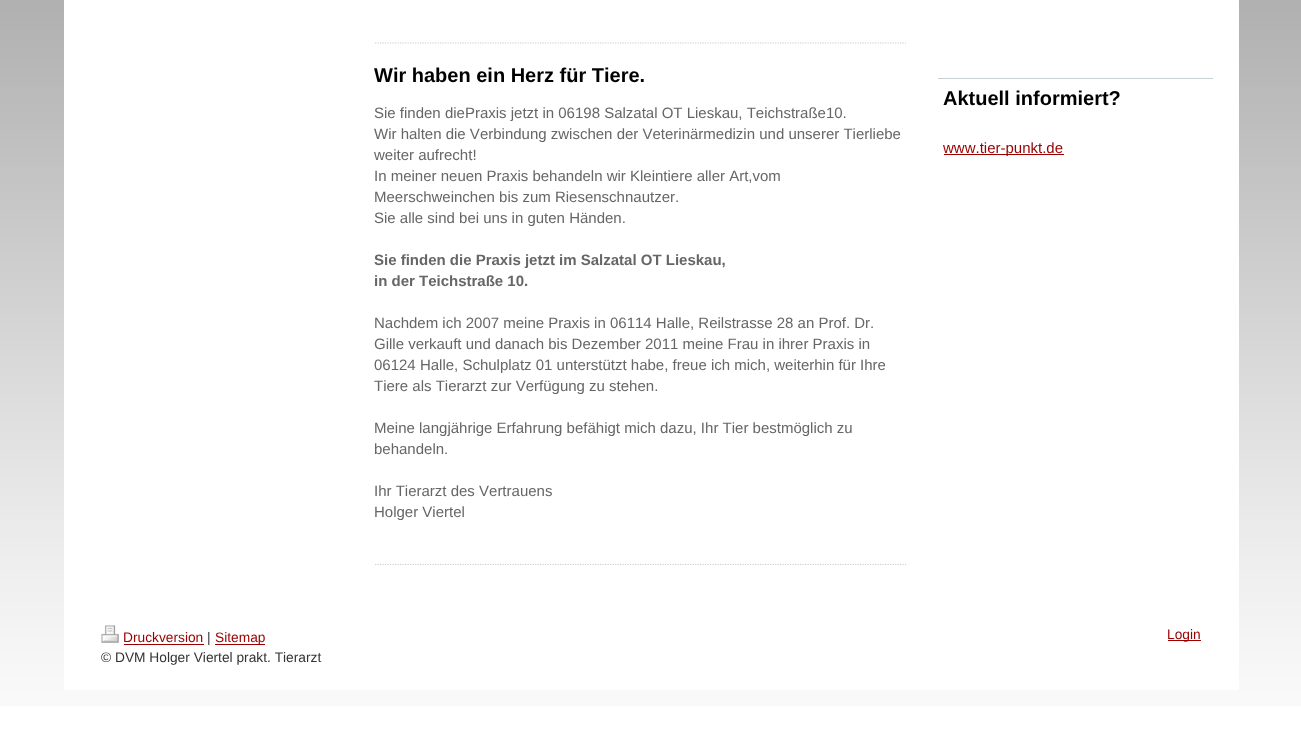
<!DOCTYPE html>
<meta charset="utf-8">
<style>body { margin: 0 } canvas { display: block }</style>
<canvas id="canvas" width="1301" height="746"></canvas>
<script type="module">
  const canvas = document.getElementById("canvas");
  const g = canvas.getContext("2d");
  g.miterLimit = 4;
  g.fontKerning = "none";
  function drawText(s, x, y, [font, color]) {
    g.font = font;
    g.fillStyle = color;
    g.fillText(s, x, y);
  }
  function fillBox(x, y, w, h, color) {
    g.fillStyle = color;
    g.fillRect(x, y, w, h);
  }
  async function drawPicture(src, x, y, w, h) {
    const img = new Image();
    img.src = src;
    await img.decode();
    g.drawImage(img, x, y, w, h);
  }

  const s1 = ["bold 20px Liberation Sans", "#000000"];
  const s2 = ["15px Liberation Sans", "#666666"];
  const s3 = ["bold 15px Liberation Sans", "#666666"];
  const s4 = ["15px Liberation Sans", "#990000"];
  const s5 = ["13.75px Liberation Sans", "#990000"];
  const s6 = ["13.75px Liberation Sans", "#333333"];

  fillBox(0, 0, 1301, 746, "#FFFFFF");
  await drawPicture("pic1.png", 0, 0, 1301, 706);
  fillBox(64, 0, 1175, 690, "#FFFFFF");
  g.beginPath();
  g.moveTo(375, 43);
  g.lineTo(906, 43);
  g.strokeStyle = "#CCCCCC";
  g.lineWidth = 1.2;
  g.setLineDash([1.25, 1.25]);
  g.stroke();
  drawText("Wir haben ein Herz für Tiere.", 374, 82, s1);
  drawText("Sie finden diePraxis jetzt in 06198 Salzatal OT Lieskau, Teichstraße10.", 374, 118, s2);
  drawText("Wir halten die Verbindung zwischen der Veterinärmedizin und unserer Tierliebe", 374, 139, s2);
  drawText("weiter aufrecht!", 374, 160, s2);
  drawText("In meiner neuen Praxis behandeln wir Kleintiere aller Art,vom", 374, 181, s2);
  drawText("Meerschweinchen bis zum Riesenschnautzer.", 374, 202, s2);
  drawText("Sie alle sind bei uns in guten Händen.", 374, 223, s2);
  drawText("Sie finden die Praxis jetzt im Salzatal OT Lieskau,", 374, 265, s3);
  drawText("in der Teichstraße 10.", 374, 286, s3);
  drawText("Nachdem ich 2007 meine Praxis in 06114 Halle, Reilstrasse 28 an Prof. Dr.", 374, 328, s2);
  drawText("Gille verkauft und danach bis Dezember 2011 meine Frau in ihrer Praxis in", 374, 349, s2);
  drawText("06124 Halle, Schulplatz 01 unterstützt habe, freue ich mich, weiterhin für Ihre", 374, 370, s2);
  drawText("Tiere als Tierarzt zur Verfügung zu stehen.", 374, 391, s2);
  drawText("Meine langjährige Erfahrung befähigt mich dazu, Ihr Tier bestmöglich zu", 374, 433, s2);
  drawText("behandeln.", 374, 454, s2);
  drawText("Ihr Tierarzt des Vertrauens", 374, 496, s2);
  drawText("Holger Viertel", 374, 517, s2);
  g.beginPath();
  g.moveTo(375, 564.5);
  g.lineTo(906, 564.5);
  g.stroke();
  fillBox(938, 78, 275, 1, "#CAD1D5");
  drawText("Aktuell informiert?", 943, 105, s1);
  fillBox(944, 154, 120, 1, "#990000");
  drawText("www.tier-punkt.de", 943, 153, s4);
  await drawPicture("pic2.png", 101, 625, 18, 18);
  drawText("Druckversion", 123, 642, s5);
  fillBox(124, 644, 80, 1, "#990000");
  drawText("|", 207, 642, s6);
  fillBox(215, 644, 50, 1, "#990000");
  drawText("Sitemap", 215, 642, s5);
  drawText("© DVM Holger Viertel prakt. Tierarzt", 101, 662, s6);
  fillBox(1168, 640, 33, 1, "#990000");
  drawText("Login", 1167, 639, s5);
</script>
